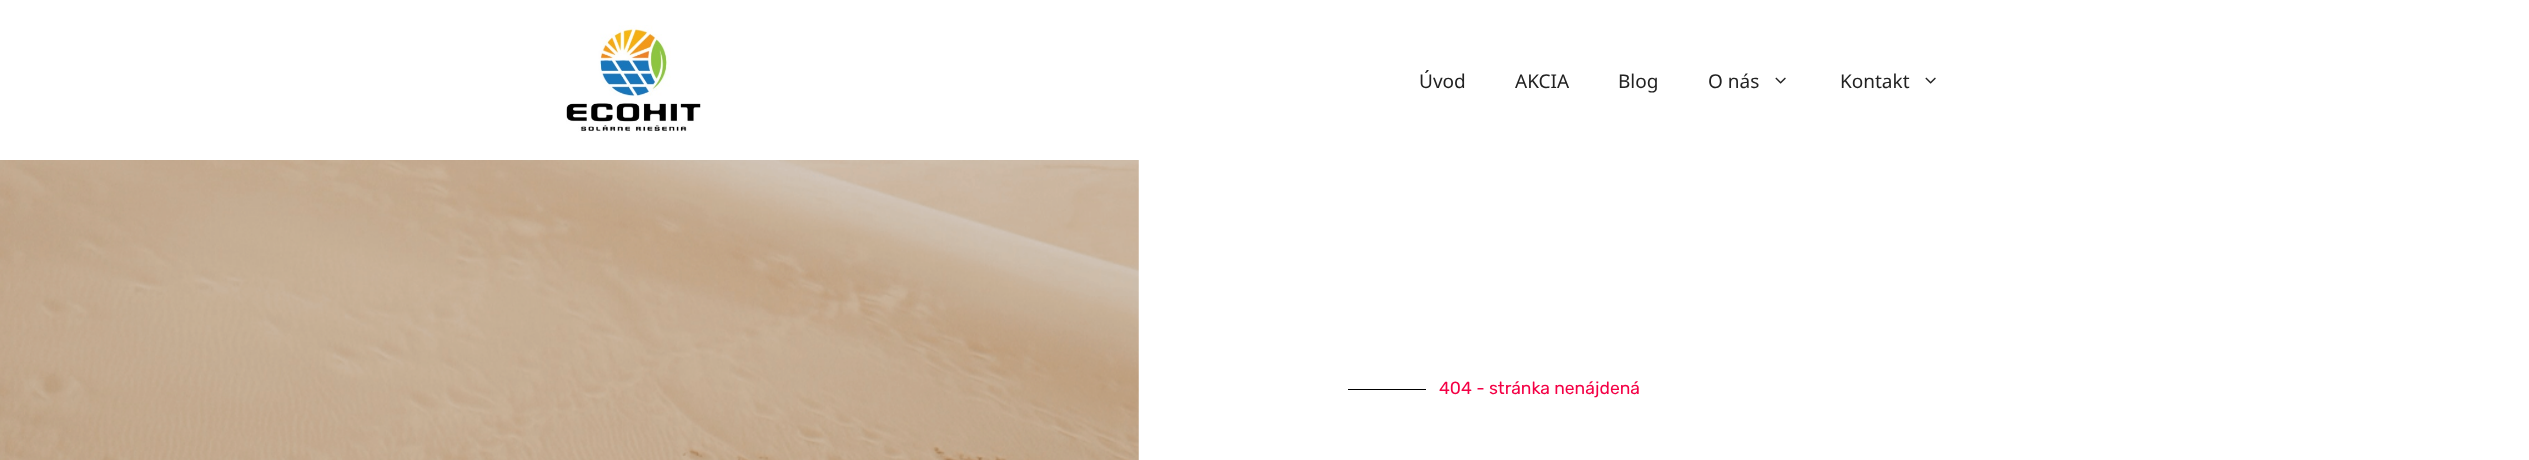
<!DOCTYPE html>
<meta charset="utf-8">
<style>body { margin: 0 } canvas { display: block }</style>
<canvas id="canvas" width="2529" height="460"></canvas>
<script type="module">
  const canvas = document.getElementById("canvas");
  const g = canvas.getContext("2d");
  g.miterLimit = 4;
  g.fontKerning = "normal";
  function drawText(s, x, y, [font, color]) {
    g.font = font;
    g.fillStyle = color;
    g.fillText(s, x, y);
  }
  function fillBox(x, y, w, h, color) {
    g.fillStyle = color;
    g.fillRect(x, y, w, h);
  }
  async function drawPicture(src, x, y, w, h) {
    const img = new Image();
    img.src = src;
    await img.decode();
    g.drawImage(img, x, y, w, h);
  }

  const s1 = ["19px Noto Sans", "#222222"];
  const s2 = ["17.5px Rubik", "#F40045"];

  fillBox(0, 0, 2529, 460, "#FFFFFF");
  await drawPicture("pic1.png", 566, 25, 135, 107);
  drawText("Úvod", 1419, 88, s1);
  drawText("AKCIA", 1515, 88, s1);
  drawText("Blog", 1618, 88, s1);
  drawText("O nás", 1708, 88, s1);
  await drawPicture("pic2.png", 1775, 77, 11, 7);
  drawText("Kontakt", 1840, 88, s1);
  await drawPicture("pic2.png", 1925, 77, 11, 7);
  await drawPicture("pic3.png", 0, 160, 1139, 300);
  fillBox(1348, 389, 78, 1, "#000000");
  drawText("404 - stránka nenájdená", 1439, 394, s2);
</script>
